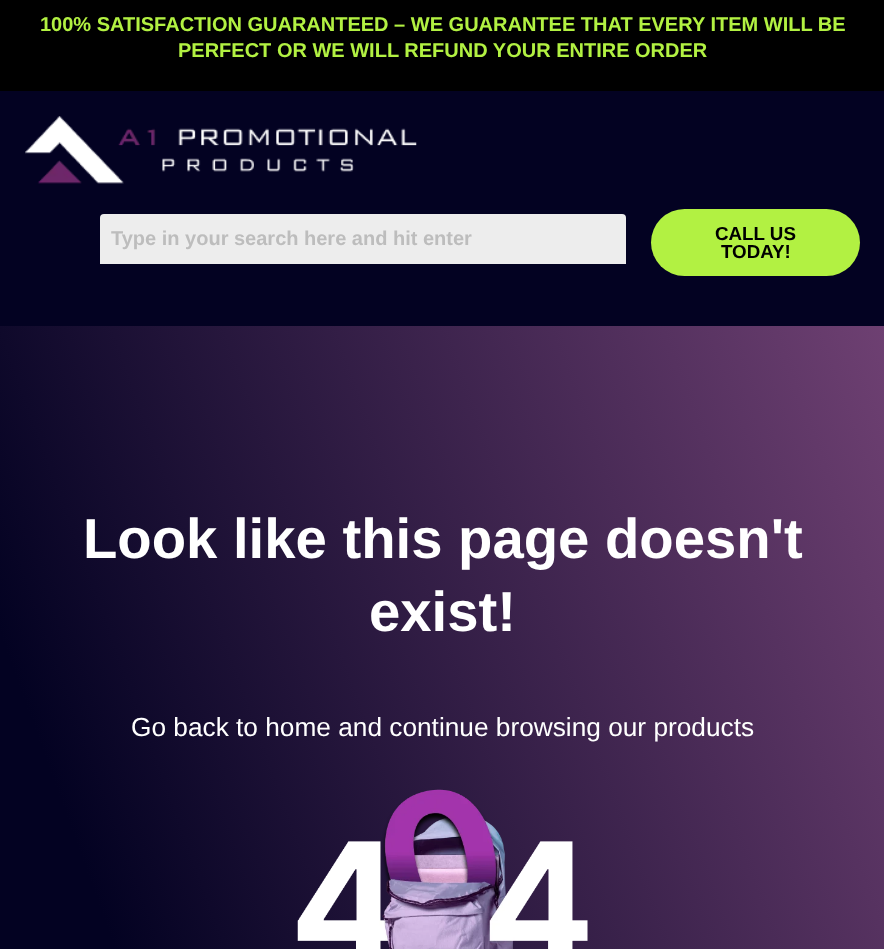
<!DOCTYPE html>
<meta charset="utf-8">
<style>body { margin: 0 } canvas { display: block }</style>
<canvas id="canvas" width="884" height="949"></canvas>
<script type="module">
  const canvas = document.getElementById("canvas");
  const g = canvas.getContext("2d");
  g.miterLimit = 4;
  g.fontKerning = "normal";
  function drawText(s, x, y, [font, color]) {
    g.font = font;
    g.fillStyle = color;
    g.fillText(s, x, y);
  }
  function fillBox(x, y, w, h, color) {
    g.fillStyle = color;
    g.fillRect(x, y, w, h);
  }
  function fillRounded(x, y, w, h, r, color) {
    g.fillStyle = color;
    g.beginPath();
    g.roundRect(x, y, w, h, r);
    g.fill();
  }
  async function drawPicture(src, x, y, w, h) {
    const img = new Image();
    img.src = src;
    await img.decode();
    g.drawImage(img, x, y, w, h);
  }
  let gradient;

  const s1 = ["bold 20px Liberation Sans", "#B2F142"];
  const s2 = ["bold 20px Liberation Sans", "#BDBDBD"];
  const s3 = ["bold 18.75px Liberation Sans", "#000000"];
  const s4 = ["bold 56.25px Liberation Sans", "#FFFFFF"];
  const s5 = ["26.25px Liberation Sans", "#FFFFFF"];

  fillBox(0, 0, 884, 949, "#000000");
  drawText("100% SATISFACTION GUARANTEED – WE GUARANTEE THAT EVERY ITEM WILL BE", 40, 31, s1);
  drawText("PERFECT OR WE WILL REFUND YOUR ENTIRE ORDER", 178, 57, s1);
  fillBox(0, 91, 884, 235, "#030222");
  await drawPicture("pic1.png", 25, 116, 392, 68);
  g.fillStyle = "#EDEDED";
  g.beginPath();
  g.roundRect(100, 214, 526, 50, [4, 4, 0, 0]);
  g.fill();
  drawText("Type in your search here and hit enter", 111, 245, s2);
  fillRounded(651, 209, 209, 67, 33.5, "#B2F142");
  drawText("CALL US", 715, 240, s3);
  drawText("TODAY!", 721, 258, s3);
  gradient = g.createLinearGradient(-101, 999, 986, 603);
  gradient.addColorStop(0.19, "#030222");
  gradient.addColorStop(1, "#6E4072");
  g.fillStyle = gradient;
  g.fillRect(0, 326, 884, 623);
  drawText("Look like this page doesn't", 83, 558, s4);
  drawText("exist!", 369, 631, s4);
  drawText("Go back to home and continue browsing our products", 131, 736, s5);
  await drawPicture("pic2.png", 297, 789, 291, 160);
</script>
